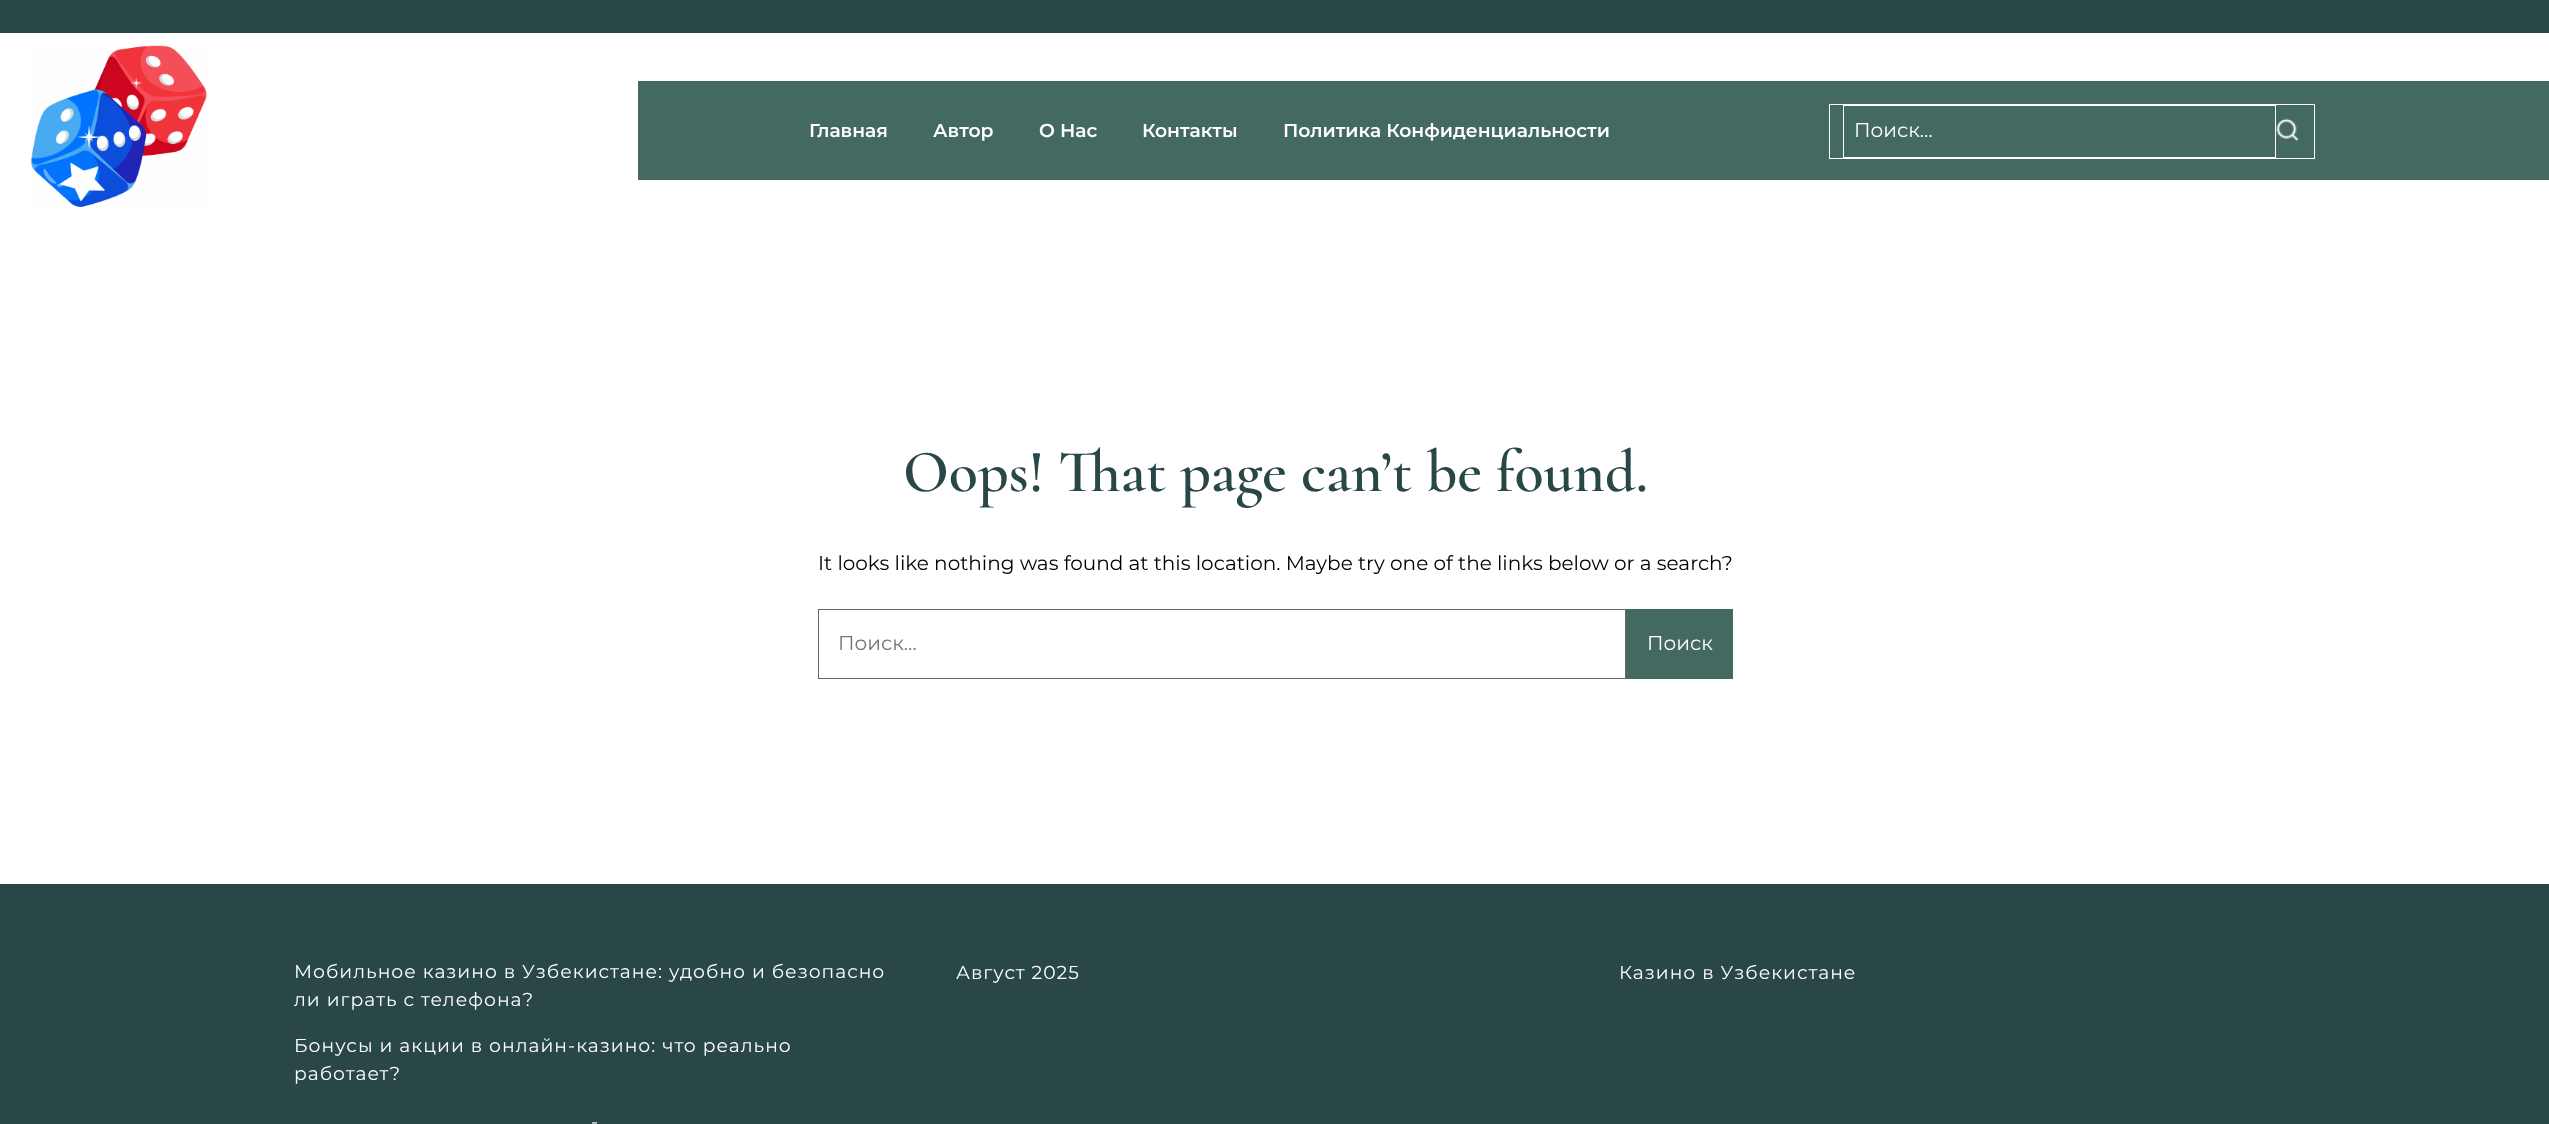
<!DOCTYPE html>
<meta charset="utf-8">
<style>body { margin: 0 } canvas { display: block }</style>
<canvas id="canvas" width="2549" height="1124"></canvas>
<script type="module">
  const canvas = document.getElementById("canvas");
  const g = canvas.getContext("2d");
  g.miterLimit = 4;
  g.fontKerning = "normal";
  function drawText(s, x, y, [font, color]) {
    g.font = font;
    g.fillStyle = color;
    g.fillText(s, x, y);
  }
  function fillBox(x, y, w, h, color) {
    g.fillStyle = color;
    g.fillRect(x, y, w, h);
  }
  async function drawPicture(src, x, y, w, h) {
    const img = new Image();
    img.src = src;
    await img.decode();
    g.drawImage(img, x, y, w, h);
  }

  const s1 = ["600 18.75px Montserrat", "#FFFFFF"];
  const s2 = ["20px Montserrat", "#FFFFFF"];
  const s3 = ["600 60px Cormorant", "#284746"];
  const s4 = ["20px Montserrat", "#000000"];
  const s5 = ["20px Montserrat", "#757575"];
  const s6 = ["18.75px Montserrat", "#FFFFFF"];

  fillBox(0, 0, 2549, 1124, "#FFFFFF");
  fillBox(0, 0, 2549, 33, "#284746");
  await drawPicture("pic1.png", 31, 45, 176, 162);
  fillBox(638, 81, 1911, 99, "#446960");
  drawText("Главная", 809, 137, s1);
  drawText("Автор", 933, 137, s1);
  drawText("О Нас", 1039, 137, s1);
  drawText("Контакты", 1142, 137, s1);
  drawText("Политика Конфиденциальности", 1283, 137, s1);
  g.strokeStyle = "#FFFFFF";
  g.strokeRect(1829.5, 104.5, 485, 54);
  g.strokeRect(1843.5, 105.5, 432, 52);
  drawText("Поиск…", 1854, 137, s2);
  await drawPicture("pic2.png", 2276, 118, 23, 24);
  drawText("Oops! That page can’t be found.", 903, 491, s3);
  drawText("It looks like nothing was found at this location. Maybe try one of the links below or a search?", 818, 570, s4);
  g.strokeStyle = "#666666";
  g.strokeRect(818.5, 609.5, 807, 69);
  drawText("Поиск…", 838, 650, s5);
  fillBox(1626, 609, 107, 70, "#446960");
  drawText("Поиск", 1647, 650, s2);
  fillBox(0, 884, 2549, 240, "#284746");
  g.letterSpacing = "1px";
  drawText("Мобильное казино в Узбекистане: удобно и безопасно", 294, 978, s6);
  drawText("ли играть с телефона?", 294, 1006, s6);
  drawText("Бонусы и акции в онлайн-казино: что реально", 294, 1052, s6);
  drawText("работает?", 294, 1080, s6);
  drawText("-", 591, 1128, s6);
  drawText("Август 2025", 956, 979, s6);
  drawText("Казино в Узбекистане", 1619, 979, s6);
</script>
